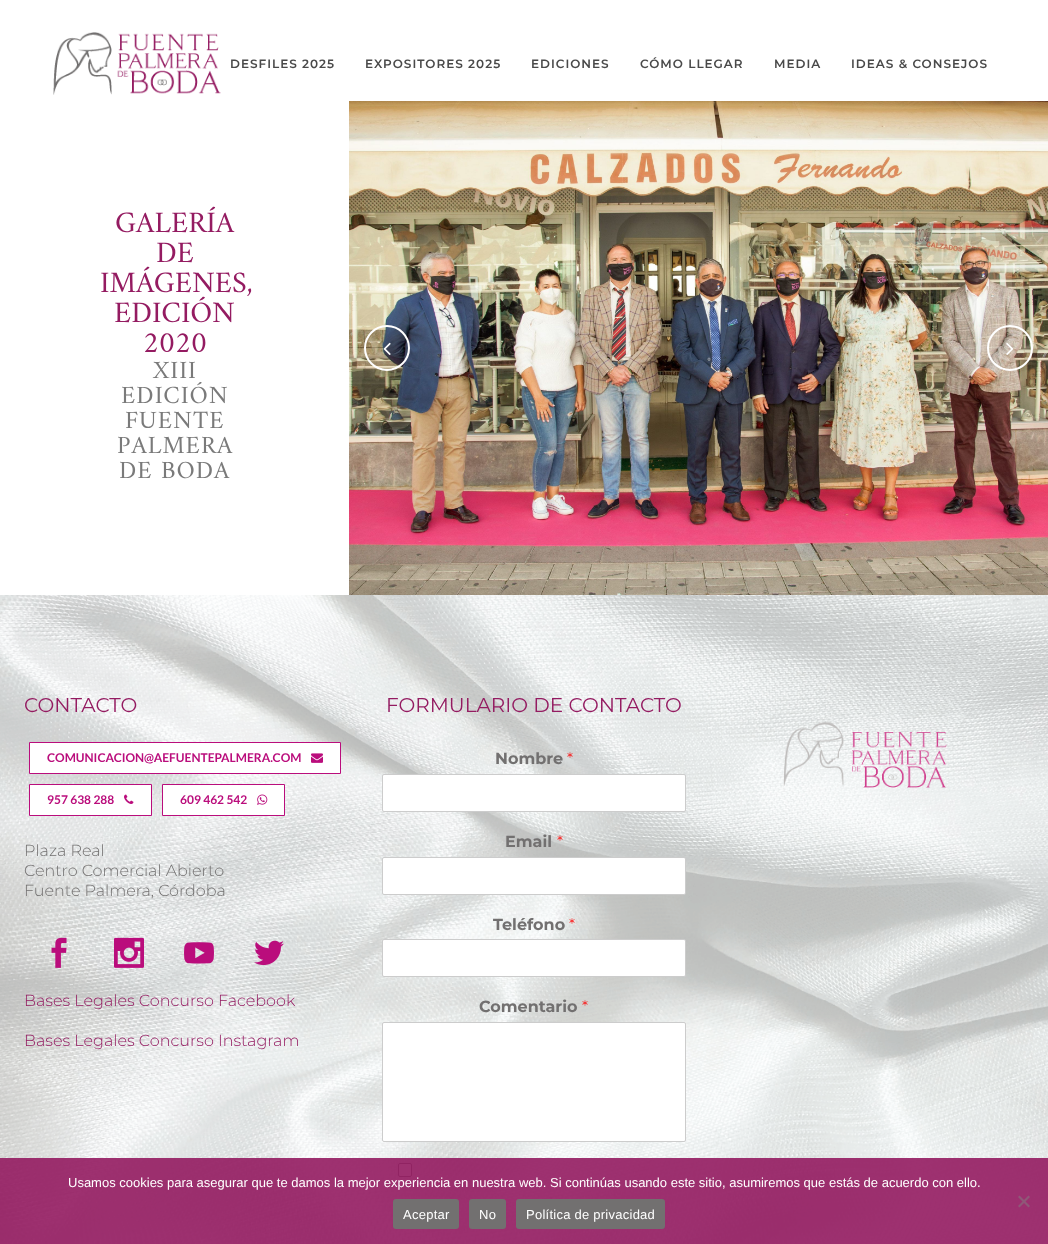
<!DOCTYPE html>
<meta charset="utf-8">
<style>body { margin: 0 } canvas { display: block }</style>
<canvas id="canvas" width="1048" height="1244"></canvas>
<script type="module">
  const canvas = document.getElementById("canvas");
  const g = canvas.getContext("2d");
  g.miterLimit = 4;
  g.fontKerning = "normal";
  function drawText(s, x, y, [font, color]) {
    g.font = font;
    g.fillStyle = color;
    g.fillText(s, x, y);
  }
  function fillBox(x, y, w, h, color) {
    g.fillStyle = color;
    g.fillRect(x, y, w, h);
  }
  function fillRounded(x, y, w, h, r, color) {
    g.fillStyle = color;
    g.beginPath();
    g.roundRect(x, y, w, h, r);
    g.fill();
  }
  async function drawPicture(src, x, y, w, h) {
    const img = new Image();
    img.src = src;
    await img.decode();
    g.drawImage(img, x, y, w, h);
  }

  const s1 = ["600 12px Montserrat", "#494949"];
  const s2 = ["30px Amiri", "#941B61"];
  const s3 = ["25px Amiri", "#7A7A7A"];
  const s4 = ["20px Montserrat", "#941B61"];
  const s5 = ["bold 12px Lato", "#BA0D7C"];
  const s6 = ["300 16px Montserrat", "#727070"];
  const s7 = ["300 16px Montserrat", "#941B61"];
  const s8 = ["bold 16px Montserrat", "#727070"];
  const s9 = ["300 16px Montserrat", "#FF0000"];
  const s10 = ["13px Liberation Sans", "#FFFFFF"];

  fillBox(0, 0, 1048, 1244, "#FFFFFF");
  await drawPicture("pic1.png", 53, 32, 168, 63);
  g.letterSpacing = "1px";
  drawText("DESFILES 2025", 230, 68, s1);
  drawText("EXPOSITORES 2025", 365, 68, s1);
  drawText("EDICIONES", 531, 68, s1);
  drawText("CÓMO LLEGAR", 640, 68, s1);
  drawText("MEDIA", 774, 68, s1);
  drawText("IDEAS & CONSEJOS", 851, 68, s1);
  g.letterSpacing = "0px";
  drawText("GALERÍA", 115, 232, s2);
  drawText("DE", 156, 262, s2);
  drawText("IMÁGENES,", 100, 292, s2);
  drawText("EDICIÓN", 114, 322, s2);
  drawText("2020", 143, 352, s2);
  g.letterSpacing = "1px";
  drawText("XIII", 153, 378, s3);
  drawText("EDICIÓN", 121, 403, s3);
  drawText("FUENTE", 125, 428, s3);
  drawText("PALMERA", 117, 453, s3);
  drawText("DE BODA", 119, 478, s3);
  await drawPicture("pic2.png", 349, 101, 699, 494);
  g.beginPath();
  g.arc(387, 348, 22, 0, Math.PI * 2);
  g.strokeStyle = "#FFFFFF";
  g.lineWidth = 2;
  g.stroke();
  await drawPicture("pic3.png", 383, 342, 8, 13);
  g.beginPath();
  g.arc(1010, 348, 22, 0, Math.PI * 2);
  g.stroke();
  await drawPicture("pic4.png", 1006, 342, 8, 13);
  await drawPicture("pic5.png", 0, 595, 1048, 649);
  g.letterSpacing = "0px";
  drawText("CONTACTO", 24, 712, s4);
  g.fillStyle = "#FFFFFF";
  g.beginPath();
  g.rect(29.5, 742.5, 311, 31);
  g.fill();
  g.strokeStyle = "#BA0D7C";
  g.lineWidth = 1;
  g.stroke();
  drawText("COMUNICACION@AEFUENTEPALMERA.COM", 47, 762, s5);
  await drawPicture("pic6.png", 311, 753, 12, 10);
  g.fillStyle = "#FFFFFF";
  g.beginPath();
  g.rect(29.5, 784.5, 122, 31);
  g.fill();
  g.stroke();
  drawText("957 638 288", 47, 804, s5);
  await drawPicture("pic7.png", 124, 794, 10, 10);
  g.fillStyle = "#FFFFFF";
  g.beginPath();
  g.rect(162.5, 784.5, 122, 31);
  g.fill();
  g.stroke();
  drawText("609 462 542", 180, 804, s5);
  await drawPicture("pic8.png", 257, 794, 11, 11);
  drawText("Plaza Real", 24, 856, s6);
  drawText("Centro Comercial Abierto", 24, 876, s6);
  drawText("Fuente Palmera, Córdoba", 24, 896, s6);
  await drawPicture("pic9.png", 51, 937, 16, 31);
  await drawPicture("pic10.png", 114, 937, 30, 31);
  await drawPicture("pic11.png", 184, 942, 30, 22);
  await drawPicture("pic12.png", 254, 940, 30, 26);
  drawText("Bases Legales Concurso Facebook", 24, 1006, s7);
  drawText("Bases Legales Concurso Instagram", 24, 1046, s7);
  drawText("FORMULARIO DE CONTACTO", 386, 712, s4);
  drawText("Nombre", 495, 764, s8);
  drawText("*", 567, 764, s9);
  g.fillStyle = "#FFFFFF";
  g.beginPath();
  g.roundRect(382.5, 774.5, 303, 37, 1.5);
  g.fill();
  g.strokeStyle = "#CCCCCC";
  g.stroke();
  drawText("Email", 505, 847, s8);
  drawText("*", 557, 847, s9);
  g.fillStyle = "#FFFFFF";
  g.beginPath();
  g.roundRect(382.5, 857.5, 303, 37, 1.5);
  g.fill();
  g.stroke();
  drawText("Teléfono", 493, 930, s8);
  drawText("*", 569, 930, s9);
  g.fillStyle = "#FFFFFF";
  g.beginPath();
  g.roundRect(382.5, 939.5, 303, 37, 1.5);
  g.fill();
  g.stroke();
  drawText("Comentario", 479, 1012, s8);
  drawText("*", 582, 1012, s9);
  g.fillStyle = "#FFFFFF";
  g.beginPath();
  g.roundRect(382.5, 1022.5, 303, 119, 1.5);
  g.fill();
  g.stroke();
  g.beginPath();
  g.roundRect(398.5, 1163.5, 13, 13, 1.5);
  g.fill();
  g.strokeStyle = "#767676";
  g.stroke();
  await drawPicture("pic13.png", 783, 721, 164, 67);
  fillBox(0, 1158, 1048, 86, "rgba(148, 27, 97, 0.9)");
  drawText("Usamos cookies para asegurar que te damos la mejor experiencia en nuestra web. Si continúas usando este sitio, asumiremos que estás de acuerdo con ello.", 68, 1187, s10);
  g.fillStyle = "#8F5878";
  g.beginPath();
  g.moveTo(1028.5, 1195.5);
  g.lineTo(1030, 1197);
  g.lineTo(1019.5, 1207.5);
  g.lineTo(1018, 1206);
  g.closePath();
  g.fill();
  g.beginPath();
  g.moveTo(1018, 1197);
  g.lineTo(1019.5, 1195.5);
  g.lineTo(1030, 1206);
  g.lineTo(1028.5, 1207.5);
  g.closePath();
  g.fill();
  fillRounded(393, 1199, 66, 30, 3, "#727070");
  g.letterSpacing = "0.25px";
  drawText("Aceptar", 403, 1219, s10);
  fillRounded(469, 1199, 37, 30, 3, "#727070");
  drawText("No", 479, 1219, s10);
  fillRounded(516, 1199, 149, 30, 3, "#727070");
  drawText("Política de privacidad", 526, 1219, s10);
</script>
